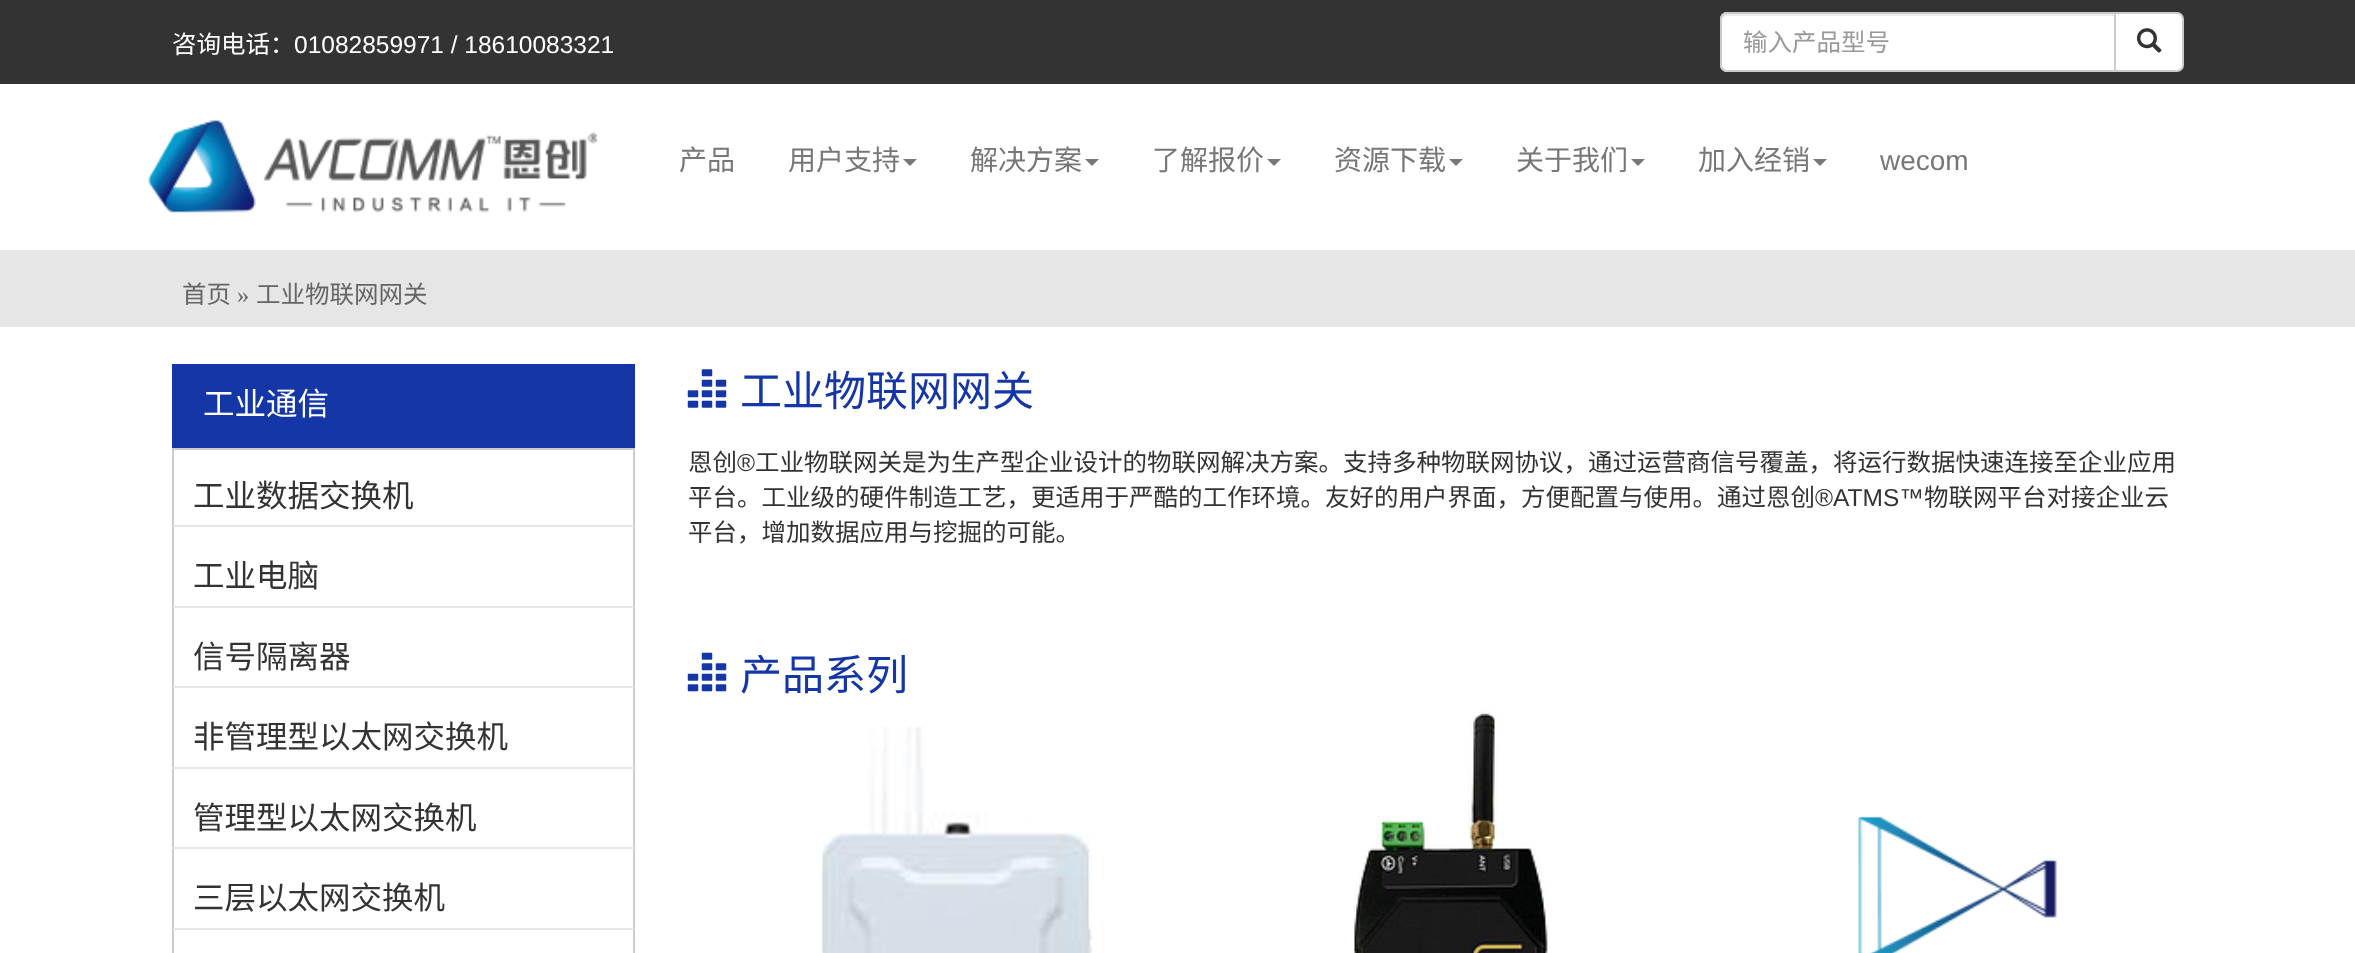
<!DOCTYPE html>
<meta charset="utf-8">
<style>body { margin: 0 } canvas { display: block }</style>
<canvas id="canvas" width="2355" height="953"></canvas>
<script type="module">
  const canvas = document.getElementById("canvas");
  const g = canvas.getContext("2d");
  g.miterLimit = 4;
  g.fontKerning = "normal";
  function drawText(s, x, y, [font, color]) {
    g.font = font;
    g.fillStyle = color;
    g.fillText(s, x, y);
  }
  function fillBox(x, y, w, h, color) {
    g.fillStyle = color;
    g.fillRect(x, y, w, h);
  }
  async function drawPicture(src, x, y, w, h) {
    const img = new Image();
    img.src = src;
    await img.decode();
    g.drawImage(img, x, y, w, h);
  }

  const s1 = ["24.5px Noto Sans CJK SC", "#FFFFFF"];
  const s2 = ["24.5px Liberation Sans", "#FFFFFF"];
  const s3 = ["24.5px Noto Sans CJK SC", "#999999"];
  const s4 = ["28px Noto Sans CJK SC", "#777777"];
  const s5 = ["28px Liberation Sans", "#777777"];
  const s6 = ["24.5px Noto Sans CJK SC", "#666666"];
  const s7 = ["24.5px Liberation Serif", "#666666"];
  const s8 = ["31.5px Noto Sans CJK SC", "#FFFFFF"];
  const s9 = ["31.5px Noto Sans CJK SC", "#333333"];
  const s10 = ["42px Noto Sans CJK SC", "#1436A6"];
  const s11 = ["24.5px Noto Sans CJK SC", "#333333"];
  const s12 = ["24.5px Liberation Sans", "#333333"];

  fillBox(0, 0, 2355, 953, "#FFFFFF");
  fillBox(0, 0, 2355, 84, "#333333");
  drawText("咨询电话：", 172, 53, s1);
  drawText("01082859971 / 18610083321", 294, 53, s2);
  g.beginPath();
  g.roundRect(1720, 12, 396, 60, [7, 0, 0, 7]);
  g.fill();
  g.fillStyle = "#ECECEC";
  g.beginPath();
  g.moveTo(1727, 16);
  g.lineTo(2114, 16);
  g.lineTo(2114, 14);
  g.lineTo(1727, 14);
  g.bezierCurveTo(1724, 14, 1722, 16, 1722, 19);
  g.lineTo(1722, 21);
  g.bezierCurveTo(1722, 18, 1724, 16, 1727, 16);
  g.closePath();
  g.fill();
  g.beginPath();
  g.roundRect(1721, 13, 394, 58, [6, 0, 0, 6]);
  g.strokeStyle = "#CCCCCC";
  g.lineWidth = 2;
  g.stroke();
  drawText("输入产品型号", 1743, 51, s3);
  g.fillStyle = "#FFFFFF";
  g.beginPath();
  g.roundRect(2115, 13, 68, 58, [0, 6, 6, 0]);
  g.fill();
  g.stroke();
  await drawPicture("pic1.png", 2136, 28, 26, 25);
  await drawPicture("pic2.png", 148, 120, 450, 93);
  drawText("产品", 679, 170, s4);
  drawText("用户支持", 788, 170, s4);
  g.beginPath();
  g.moveTo(903, 159);
  g.lineTo(917, 159);
  g.lineTo(910, 166);
  g.closePath();
  g.fill();
  drawText("解决方案", 970, 170, s4);
  g.beginPath();
  g.moveTo(1085, 159);
  g.lineTo(1099, 159);
  g.lineTo(1092, 166);
  g.closePath();
  g.fill();
  drawText("了解报价", 1152, 170, s4);
  g.beginPath();
  g.moveTo(1267, 159);
  g.lineTo(1281, 159);
  g.lineTo(1274, 166);
  g.closePath();
  g.fill();
  drawText("资源下载", 1334, 170, s4);
  g.beginPath();
  g.moveTo(1449, 159);
  g.lineTo(1463, 159);
  g.lineTo(1456, 166);
  g.closePath();
  g.fill();
  drawText("关于我们", 1516, 170, s4);
  g.beginPath();
  g.moveTo(1631, 159);
  g.lineTo(1645, 159);
  g.lineTo(1638, 166);
  g.closePath();
  g.fill();
  drawText("加入经销", 1698, 170, s4);
  g.beginPath();
  g.moveTo(1813, 159);
  g.lineTo(1827, 159);
  g.lineTo(1820, 166);
  g.closePath();
  g.fill();
  drawText("wecom", 1880, 170, s5);
  fillBox(0, 250, 2355, 77, "#E6E6E6");
  drawText("首页", 182, 303, s6);
  drawText("»", 237, 303, s7);
  drawText("工业物联网网关", 256, 303, s6);
  fillBox(172, 364, 463, 84, "#1436A6");
  drawText("工业通信", 203, 415, s8);
  g.strokeRect(173, 449, 461, 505);
  fillBox(173, 525, 461, 2, "#E6E6E6");
  drawText("工业数据交换机", 193, 507, s9);
  fillBox(173, 606, 461, 2, "#E6E6E6");
  drawText("工业电脑", 193, 587, s9);
  fillBox(173, 686, 461, 2, "#E6E6E6");
  drawText("信号隔离器", 193, 668, s9);
  fillBox(173, 767, 461, 2, "#E6E6E6");
  drawText("非管理型以太网交换机", 193, 748, s9);
  fillBox(173, 847, 461, 2, "#E6E6E6");
  drawText("管理型以太网交换机", 193, 829, s9);
  fillBox(173, 928, 461, 2, "#E6E6E6");
  drawText("三层以太网交换机", 193, 909, s9);
  await drawPicture("pic3.png", 687, 369, 40, 39);
  drawText("工业物联网网关", 740, 406, s10);
  drawText("恩创", 688, 471, s11);
  drawText("®", 737, 471, s12);
  drawText("工业物联网关是为生产型企业设计的物联网解决方案。支持多种物联网协议，通过运营商信号覆盖，将运行数据快速连接至企业应用", 755, 471, s11);
  drawText("平台。工业级的硬件制造工艺，更适用于严酷的工作环境。友好的用户界面，方便配置与使用。通过恩创", 688, 506, s11);
  drawText("®ATMS™", 1815, 506, s12);
  drawText("物联网平台对接企业云", 1924, 506, s11);
  drawText("平台，增加数据应用与挖掘的可能。", 688, 541, s11);
  await drawPicture("pic4.png", 687, 652, 40, 40);
  drawText("产品系列", 740, 690, s10);
  await drawPicture("pic5.png", 820, 726, 273, 227);
  await drawPicture("pic6.png", 1353, 711, 195, 242);
  await drawPicture("pic7.png", 1858, 816, 199, 137);
</script>
